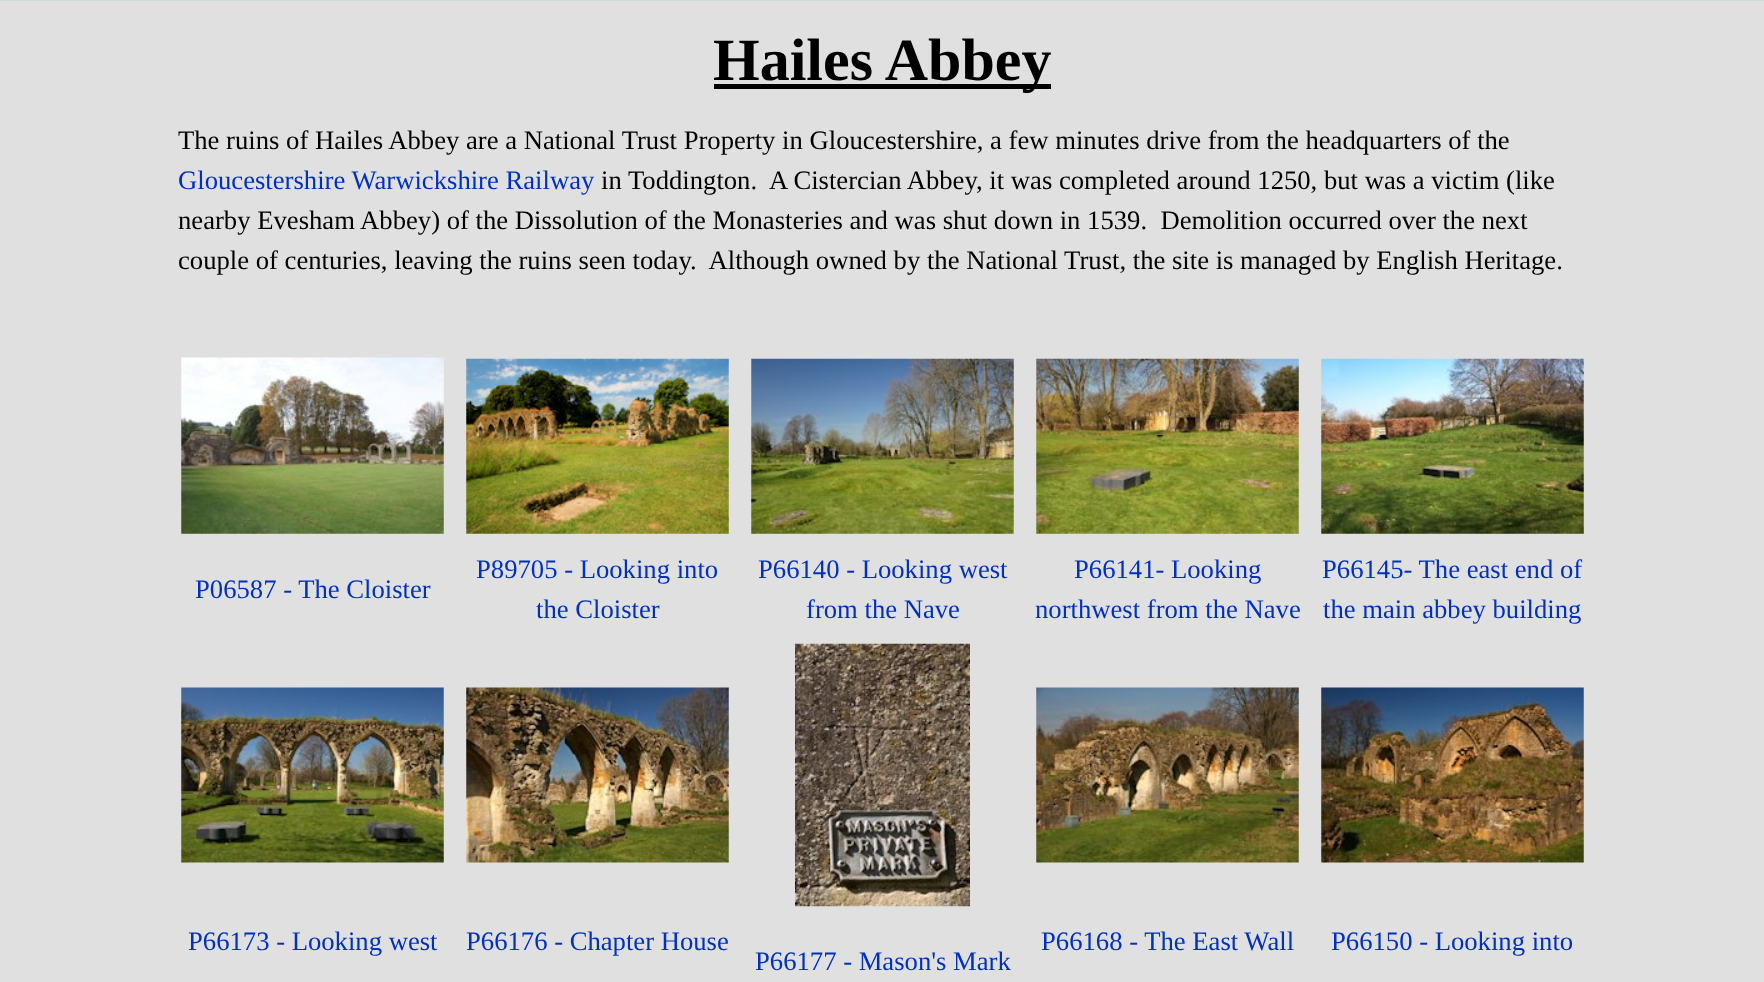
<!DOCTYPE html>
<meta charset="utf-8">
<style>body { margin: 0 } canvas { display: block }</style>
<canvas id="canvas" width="1764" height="982"></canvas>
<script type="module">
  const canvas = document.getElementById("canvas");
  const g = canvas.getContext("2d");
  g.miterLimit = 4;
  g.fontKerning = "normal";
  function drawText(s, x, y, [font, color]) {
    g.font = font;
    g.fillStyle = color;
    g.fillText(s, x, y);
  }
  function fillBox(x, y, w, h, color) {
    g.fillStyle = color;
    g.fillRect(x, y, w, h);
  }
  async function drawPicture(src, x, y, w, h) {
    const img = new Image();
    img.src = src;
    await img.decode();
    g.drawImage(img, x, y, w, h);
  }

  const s1 = ["bold 60px Liberation Serif", "#000000"];
  const s2 = ["26.67px Liberation Serif", "#000000"];
  const s3 = ["26.67px Liberation Serif", "#0030BF"];

  fillBox(0, 0, 1764, 982, "#E0E0E0");
  fillBox(0, 0, 1764, 1, "#D3DADC");
  fillBox(714, 84, 337, 5, "#000000");
  drawText("Hailes Abbey", 713, 80, s1);
  drawText("The ruins of Hailes Abbey are a National Trust Property in Gloucestershire, a few minutes drive from the headquarters of the", 178, 149, s2);
  drawText("Gloucestershire Warwickshire Railway", 178, 189, s3);
  drawText("in Toddington.  A Cistercian Abbey, it was completed around 1250, but was a victim (like", 601, 189, s2);
  drawText("nearby Evesham Abbey) of the Dissolution of the Monasteries and was shut down in 1539.  Demolition occurred over the next", 178, 229, s2);
  drawText("couple of centuries, leaving the ruins seen today.  Although owned by the National Trust, the site is managed by English Heritage.", 178, 269, s2);
  await drawPicture("pic1.png", 181, 357, 263, 177);
  await drawPicture("pic2.png", 466, 358, 263, 176);
  await drawPicture("pic3.png", 751, 358, 263, 176);
  await drawPicture("pic4.png", 1036, 358, 263, 176);
  await drawPicture("pic5.png", 1321, 358, 263, 176);
  drawText("P06587 - The Cloister", 195, 598, s3);
  drawText("P89705 - Looking into", 476, 578, s3);
  drawText("the Cloister", 536, 618, s3);
  drawText("P66140 - Looking west", 758, 578, s3);
  drawText("from the Nave", 806, 618, s3);
  drawText("P66141- Looking", 1074, 578, s3);
  drawText("northwest from the Nave", 1035, 618, s3);
  drawText("P66145- The east end of", 1322, 578, s3);
  drawText("the main abbey building", 1323, 618, s3);
  await drawPicture("pic6.png", 181, 687, 263, 176);
  await drawPicture("pic7.png", 466, 687, 263, 176);
  await drawPicture("pic8.png", 795, 643, 175, 264);
  await drawPicture("pic9.png", 1036, 687, 263, 176);
  await drawPicture("pic10.png", 1321, 687, 263, 176);
  drawText("P66173 - Looking west", 188, 950, s3);
  drawText("P66176 - Chapter House", 466, 950, s3);
  drawText("P66168 - The East Wall", 1041, 950, s3);
  drawText("P66150 - Looking into", 1331, 950, s3);
  drawText("P66177 - Mason's Mark", 755, 970, s3);
</script>
